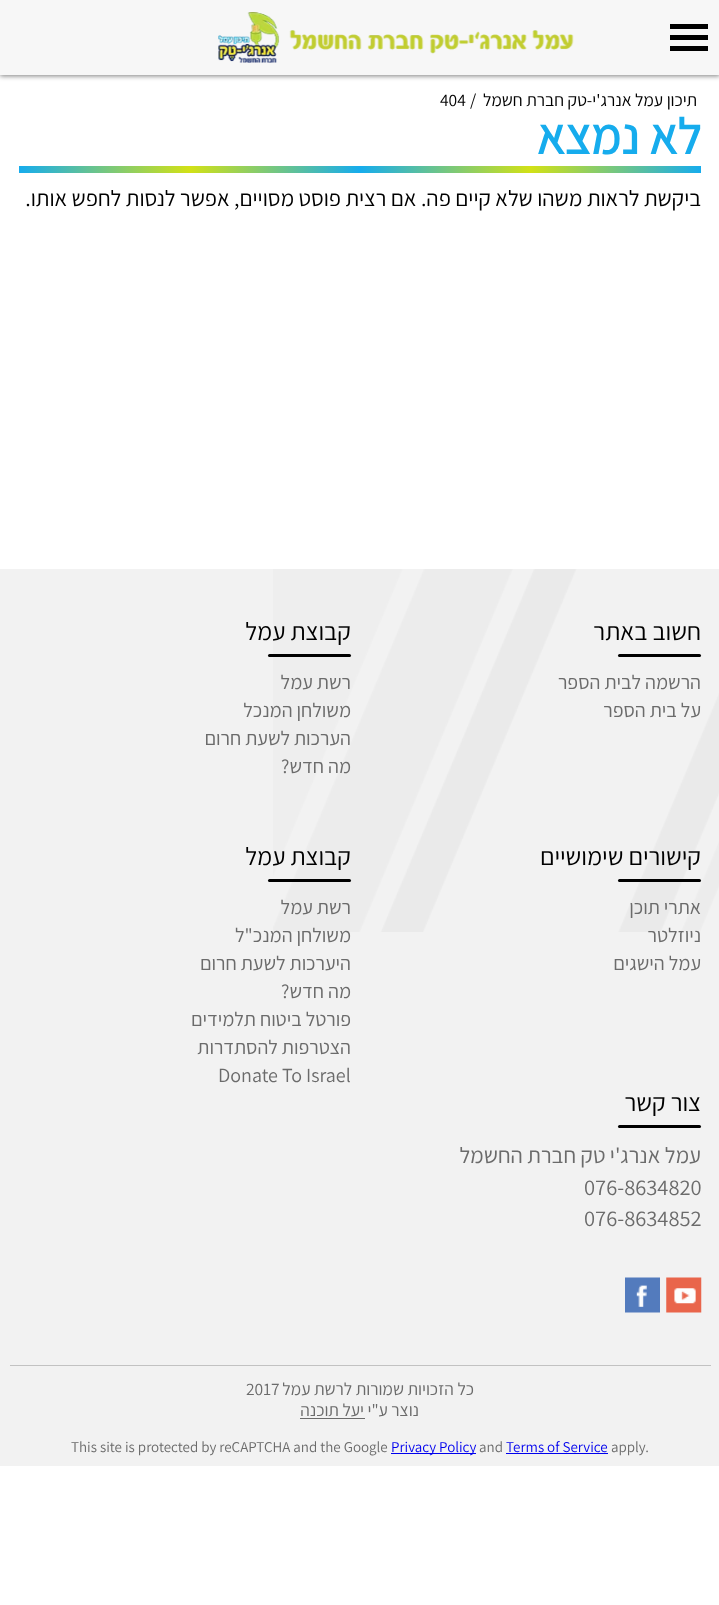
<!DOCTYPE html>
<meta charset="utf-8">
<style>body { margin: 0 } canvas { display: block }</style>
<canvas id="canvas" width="719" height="1605"></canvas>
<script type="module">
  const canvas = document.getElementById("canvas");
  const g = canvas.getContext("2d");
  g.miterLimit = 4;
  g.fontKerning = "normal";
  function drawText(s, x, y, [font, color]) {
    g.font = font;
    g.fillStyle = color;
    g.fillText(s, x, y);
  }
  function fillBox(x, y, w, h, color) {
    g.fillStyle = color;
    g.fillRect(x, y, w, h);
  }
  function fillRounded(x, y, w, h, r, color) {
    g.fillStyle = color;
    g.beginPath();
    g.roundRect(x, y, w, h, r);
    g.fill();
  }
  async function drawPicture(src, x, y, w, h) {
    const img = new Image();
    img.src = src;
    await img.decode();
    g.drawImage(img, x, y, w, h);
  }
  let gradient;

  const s1 = ["200 17.5px Assistant", "#000000"];
  const s2 = ["bold 50px Assistant", "#16ACED"];
  const s3 = ["200 22.5px Assistant", "#000000"];
  const s4 = ["200 25px Assistant", "#000000"];
  const s5 = ["200 20px Assistant", "#6B6B6B"];
  const s6 = ["200 22.5px Assistant", "#6B6B6B"];
  const s7 = ["200 17.5px Assistant", "#6B6B6B"];
  const s8 = ["200 15px Assistant", "#6B6B6B"];
  const s9 = ["200 15px Assistant", "#0000EE"];

  fillBox(0, 0, 719, 1605, "#FFFFFF");
  g.fillStyle = "rgba(0, 0, 0, 0.5)";
  g.filter = "blur(2.5px)";
  g.beginPath();
  g.rect(0, 1, 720, 75);
  g.fill();
  g.filter = "none";
  fillBox(0, 0, 719, 75, "#F7F7F7");
  fillBox(670, 24, 38, 5, "#000000");
  fillBox(670, 35, 38, 5, "#000000");
  fillBox(670, 46, 38, 5, "#000000");
  await drawPicture("pic1.png", 218, 12, 356, 51);
  g.direction = "rtl";
  drawText("תיכון עמל אנרג'י-טק חברת חשמל", 697, 106, s1);
  g.direction = "ltr";
  drawText("/", 470, 106, s1);
  drawText("404", 440, 106, s1);
  g.direction = "rtl";
  drawText("לא נמצא", 701, 154, s2);
  gradient = g.createLinearGradient(19, 169, 701, 169);
  gradient.addColorStop(0, "#16ACED");
  gradient.addColorStop(0.25, "#D2E116");
  gradient.addColorStop(0.5, "#16ACED");
  gradient.addColorStop(0.75, "#D2E116");
  gradient.addColorStop(1, "#16ACED");
  g.fillStyle = gradient;
  g.fillRect(19, 166, 682, 7);
  drawText("ביקשת לראות משהו שלא קיים פה. אם רצית פוסט מסויים, אפשר לנסות לחפש אותו.", 701, 206, s3);
  fillBox(0, 569, 719, 897, "#F2F2F2");
  await drawPicture("pic2.png", 273, 569, 446, 363);
  drawText("חשוב באתר", 701, 640, s4);
  fillRounded(618, 654, 83, 3, 1.5, "#000000");
  drawText("הרשמה לבית הספר", 701, 689, s5);
  drawText("על בית הספר", 701, 717, s5);
  drawText("קבוצת עמל", 351, 640, s4);
  fillRounded(268, 654, 83, 3, 1.5, "#000000");
  drawText("רשת עמל", 351, 689, s5);
  drawText("משולחן המנכל", 351, 717, s5);
  drawText("הערכות לשעת חרום", 351, 745, s5);
  drawText("מה חדש?", 351, 773, s5);
  drawText("קישורים שימושיים", 701, 865, s4);
  fillRounded(618, 879, 83, 3, 1.5, "#000000");
  drawText("אתרי תוכן", 701, 914, s5);
  drawText("ניוזלטר", 701, 942, s5);
  drawText("עמל הישגים", 701, 970, s5);
  drawText("קבוצת עמל", 351, 865, s4);
  fillRounded(268, 879, 83, 3, 1.5, "#000000");
  drawText("רשת עמל", 351, 914, s5);
  drawText("משולחן המנכ\"ל", 351, 942, s5);
  drawText("היערכות לשעת חרום", 351, 970, s5);
  drawText("מה חדש?", 351, 998, s5);
  drawText("פורטל ביטוח תלמידים", 351, 1026, s5);
  drawText("הצטרפות להסתדרות", 351, 1054, s5);
  g.direction = "ltr";
  drawText("Donate To Israel", 218, 1082, s5);
  g.direction = "rtl";
  drawText("צור קשר", 701, 1111, s4);
  fillRounded(618, 1125, 83, 3, 1.5, "#000000");
  drawText("עמל אנרג'י טק חברת החשמל", 701, 1163, s6);
  g.direction = "ltr";
  drawText("076-8634820", 584, 1195, s6);
  drawText("076-8634852", 584, 1226, s6);
  await drawPicture("pic3.png", 666, 1277, 36, 36);
  await drawPicture("pic4.png", 625, 1277, 35, 36);
  fillBox(10, 1365, 701, 1, "#C2C2C2");
  g.direction = "rtl";
  drawText("כל הזכויות שמורות לרשת עמל", 474, 1395, s7);
  g.direction = "ltr";
  drawText("2017", 246, 1395, s7);
  g.direction = "rtl";
  drawText("נוצר ע\"י", 419, 1416, s7);
  drawText("יעל תוכנה", 364, 1416, s7);
  fillBox(300, 1418, 65, 1, "#6B6B6B");
  g.direction = "ltr";
  drawText("apply.", 611, 1452, s8);
  drawText("Terms of Service", 506, 1452, s9);
  fillBox(506, 1453, 102, 1, "#0000EE");
  drawText("and", 479, 1452, s8);
  fillBox(391, 1453, 85, 1, "#0000EE");
  drawText("Privacy Policy", 391, 1452, s9);
  drawText("This site is protected by reCAPTCHA and the Google", 71, 1452, s8);
</script>
